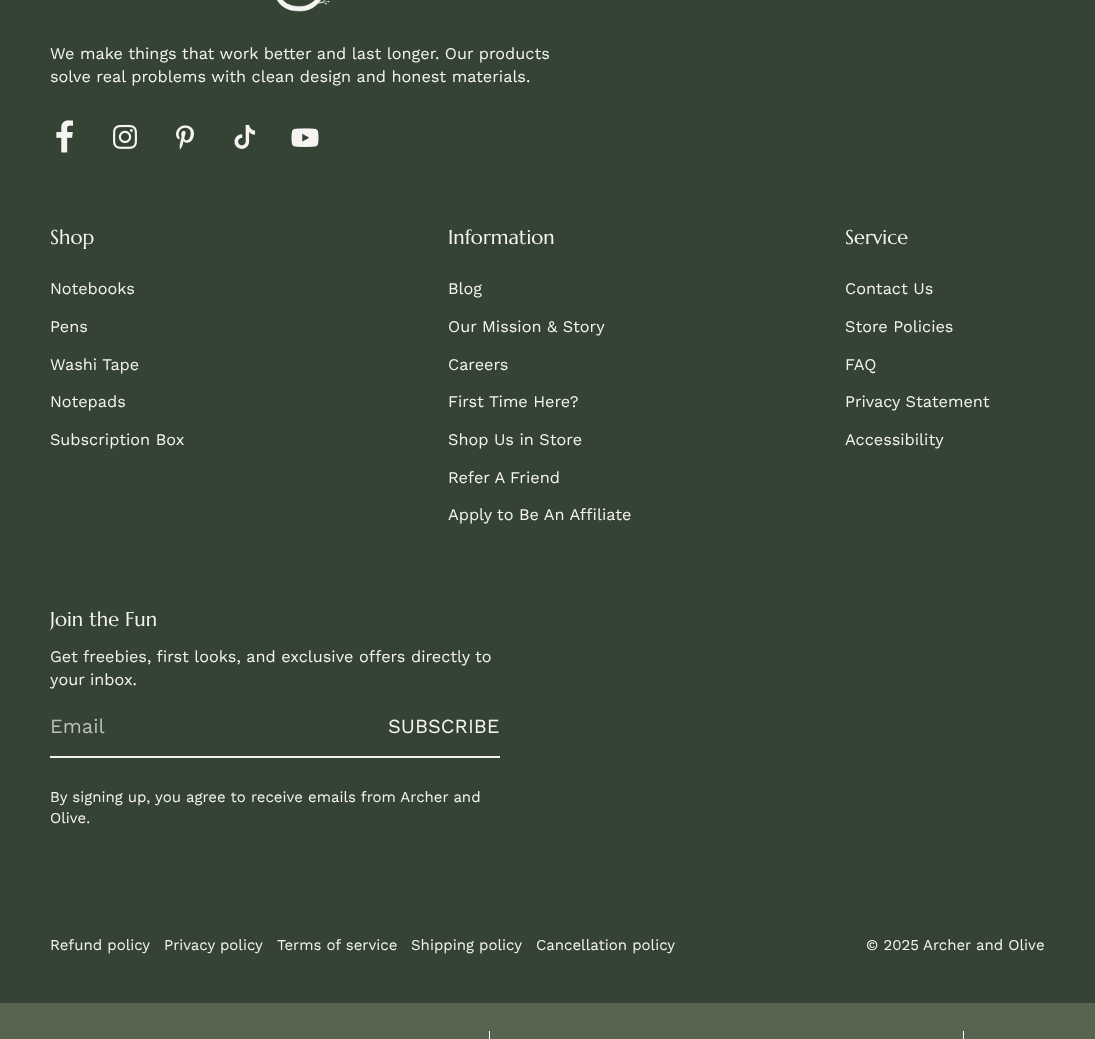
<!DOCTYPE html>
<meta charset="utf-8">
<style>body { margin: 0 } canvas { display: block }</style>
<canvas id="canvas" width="1095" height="1039"></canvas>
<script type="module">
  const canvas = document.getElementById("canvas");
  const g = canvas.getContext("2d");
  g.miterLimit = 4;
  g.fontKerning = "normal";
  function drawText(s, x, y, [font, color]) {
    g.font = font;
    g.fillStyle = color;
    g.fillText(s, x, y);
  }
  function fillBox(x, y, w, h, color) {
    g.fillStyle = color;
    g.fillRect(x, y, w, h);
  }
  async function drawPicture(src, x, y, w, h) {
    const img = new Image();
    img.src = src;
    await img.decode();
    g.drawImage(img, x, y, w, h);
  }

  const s1 = ["16.25px Work Sans", "#F6F4F2"];
  const s2 = ["20px Marcellus", "#F6F4F2"];
  const s3 = ["20px Work Sans", "#BCBFB9"];
  const s4 = ["20px Work Sans", "#F6F4F2"];
  const s5 = ["15px Work Sans", "#F6F4F2"];

  fillBox(0, 0, 1095, 1039, "#354334");
  await drawPicture("pic1.png", 276, 0, 54, 12);
  drawText("We make things that work better and last longer. Our products", 50, 59, s1);
  drawText("solve real problems with clean design and honest materials.", 50, 82, s1);
  await drawPicture("pic2.png", 56, 120, 17, 33);
  await drawPicture("pic3.png", 113, 124, 24, 25);
  await drawPicture("pic4.png", 176, 125, 18, 25);
  await drawPicture("pic5.png", 234, 124, 22, 25);
  await drawPicture("pic6.png", 291, 128, 28, 19);
  drawText("Shop", 50, 244, s2);
  drawText("Notebooks", 50, 294, s1);
  drawText("Pens", 50, 332, s1);
  drawText("Washi Tape", 50, 370, s1);
  drawText("Notepads", 50, 407, s1);
  drawText("Subscription Box", 50, 445, s1);
  drawText("Information", 448, 244, s2);
  drawText("Blog", 448, 294, s1);
  drawText("Our Mission & Story", 448, 332, s1);
  drawText("Careers", 448, 370, s1);
  drawText("First Time Here?", 448, 407, s1);
  drawText("Shop Us in Store", 448, 445, s1);
  drawText("Refer A Friend", 448, 483, s1);
  drawText("Apply to Be An Affiliate", 448, 520, s1);
  drawText("Service", 845, 244, s2);
  drawText("Contact Us", 845, 294, s1);
  drawText("Store Policies", 845, 332, s1);
  drawText("FAQ", 845, 370, s1);
  drawText("Privacy Statement", 845, 407, s1);
  drawText("Accessibility", 845, 445, s1);
  drawText("Join the Fun", 50, 626, s2);
  drawText("Get freebies, first looks, and exclusive offers directly to", 50, 662, s1);
  drawText("your inbox.", 50, 685, s1);
  fillBox(50, 756, 450, 2, "#F6F4F2");
  drawText("Email", 50, 733, s3);
  drawText("SUBSCRIBE", 388, 733, s4);
  drawText("By signing up, you agree to receive emails from Archer and", 50, 802, s5);
  drawText("Olive.", 50, 823, s5);
  drawText("Refund policy", 50, 950, s5);
  drawText("Privacy policy", 164, 950, s5);
  drawText("Terms of service", 277, 950, s5);
  drawText("Shipping policy", 411, 950, s5);
  drawText("Cancellation policy", 536, 950, s5);
  drawText("© 2025", 866, 950, s5);
  drawText("Archer and Olive", 923, 950, s5);
  fillBox(0, 1003, 1095, 36, "#58644F");
  fillBox(489, 1031, 1, 8, "#FFFFFF");
  fillBox(963, 1031, 1, 8, "#FFFFFF");
</script>
